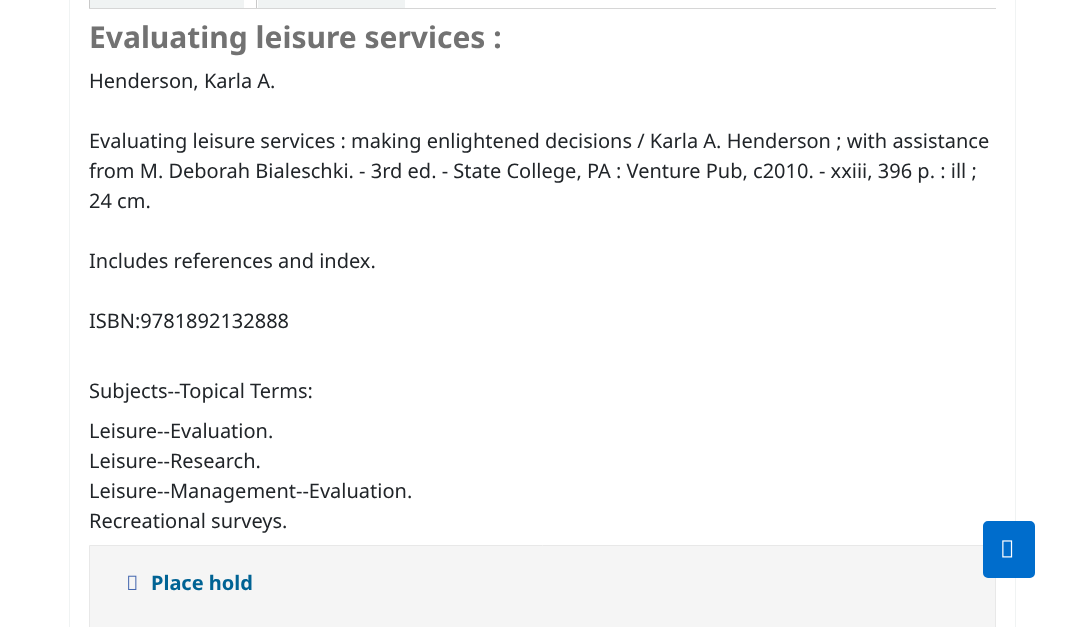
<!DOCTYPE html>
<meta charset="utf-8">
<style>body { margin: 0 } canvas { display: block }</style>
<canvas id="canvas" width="1085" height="627"></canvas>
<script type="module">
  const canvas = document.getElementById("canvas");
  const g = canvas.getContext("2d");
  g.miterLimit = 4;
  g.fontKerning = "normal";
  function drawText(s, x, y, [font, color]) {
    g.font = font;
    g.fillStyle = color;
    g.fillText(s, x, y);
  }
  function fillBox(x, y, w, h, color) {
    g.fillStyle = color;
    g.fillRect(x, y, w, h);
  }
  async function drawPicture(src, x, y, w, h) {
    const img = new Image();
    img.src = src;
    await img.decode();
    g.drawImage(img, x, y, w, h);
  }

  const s1 = ["bold 30px Noto Sans", "#727272"];
  const s2 = ["20px Noto Sans", "#212529"];
  const s3 = ["bold 20px Noto Sans", "#006394"];

  fillBox(0, 0, 1085, 627, "#FFFFFF");
  g.strokeStyle = "#F0F3F3";
  g.strokeRect(69.5, -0.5, 946, 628);
  fillBox(89, 8, 907, 1, "#D6D6D6");
  fillBox(90, 0, 154, 8, "#F0F3F3");
  fillBox(89, 0, 1, 8, "#C9C9C9");
  fillBox(258, 0, 147, 8, "#F0F3F3");
  fillBox(256, 0, 1, 8, "#C9C9C9");
  drawText("Evaluating leisure services :", 89, 48, s1);
  drawText("Henderson, Karla A.", 89, 88, s2);
  drawText("Evaluating leisure services : making enlightened decisions / Karla A. Henderson ; with assistance", 89, 148, s2);
  drawText("from M. Deborah Bialeschki. - 3rd ed. - State College, PA : Venture Pub, c2010. - xxiii, 396 p. : ill ;", 89, 178, s2);
  drawText("24 cm.", 89, 208, s2);
  drawText("Includes references and index.", 89, 268, s2);
  drawText("ISBN:9781892132888", 89, 328, s2);
  drawText("Subjects--Topical Terms:", 89, 398, s2);
  drawText("Leisure--Evaluation.", 89, 438, s2);
  drawText("Leisure--Research.", 89, 468, s2);
  drawText("Leisure--Management--Evaluation.", 89, 498, s2);
  drawText("Recreational surveys.", 89, 528, s2);
  g.fillStyle = "#F5F5F5";
  g.beginPath();
  g.rect(89.5, 545.5, 906, 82);
  g.fill();
  g.strokeStyle = "#E8E8E8";
  g.stroke();
  await drawPicture("pic1.png", 128, 575, 9, 15);
  drawText("Place hold", 151, 590, s3);
  g.fillStyle = "#006DCC";
  g.beginPath();
  g.roundRect(984.5, 522.5, 49, 54, 3.5);
  g.fill();
  g.strokeStyle = "#006DCC";
  g.lineWidth = 3;
  g.stroke();
  await drawPicture("pic2.png", 1002, 540, 11, 18);
</script>
